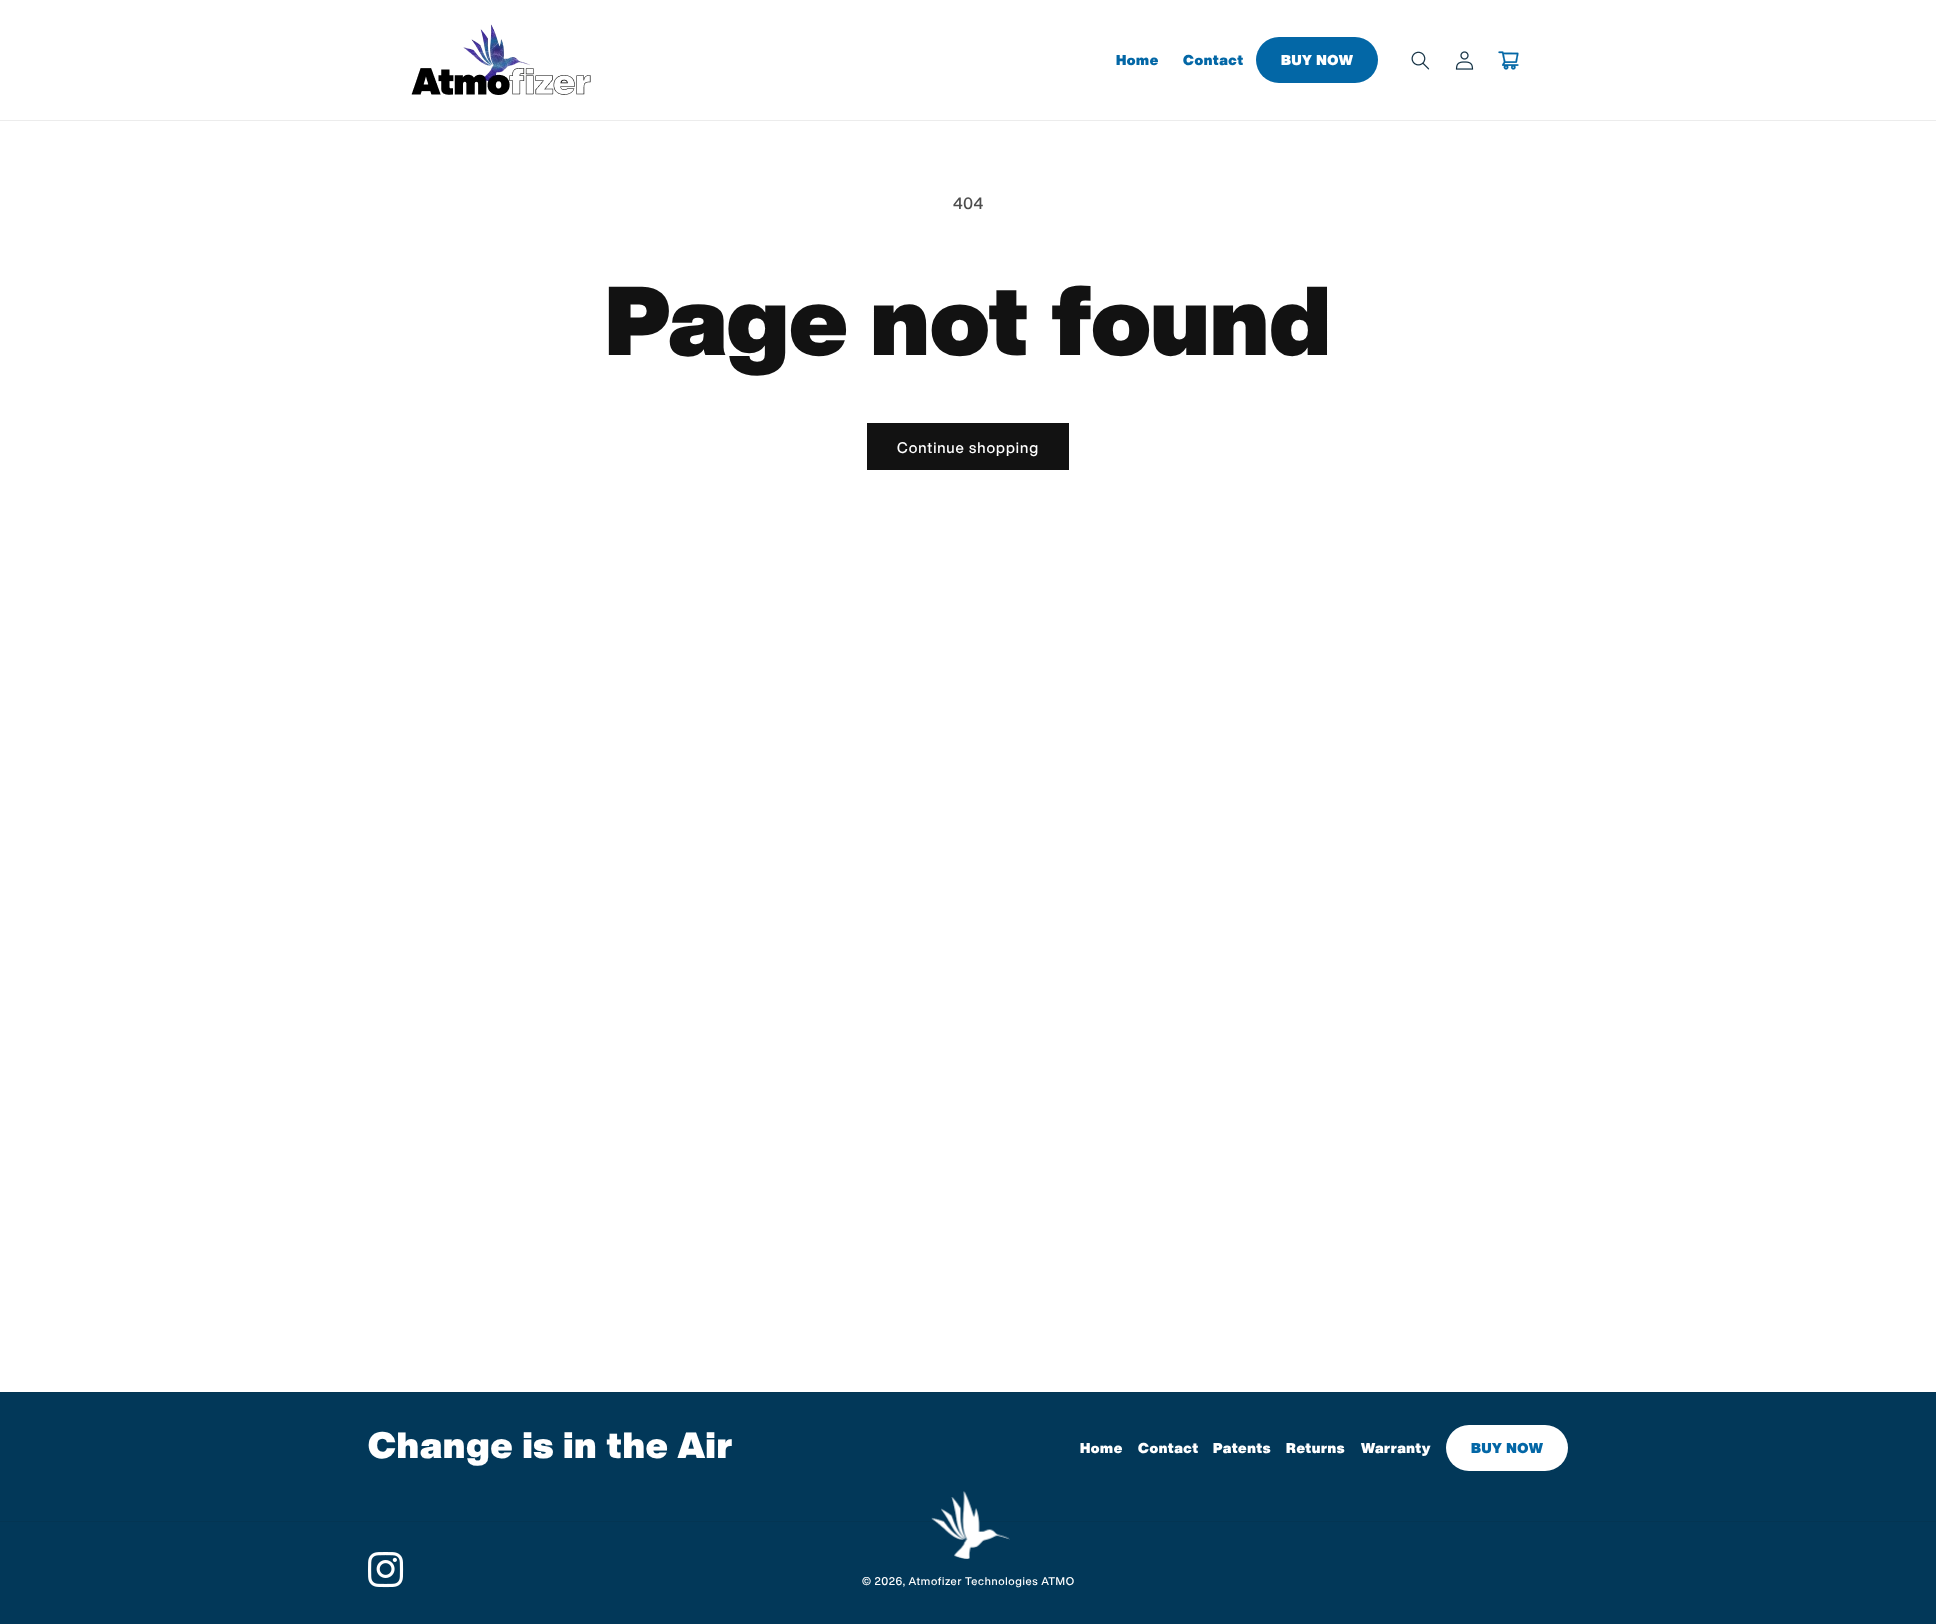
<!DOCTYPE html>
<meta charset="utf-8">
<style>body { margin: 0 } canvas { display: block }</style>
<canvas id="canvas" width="1936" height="1624"></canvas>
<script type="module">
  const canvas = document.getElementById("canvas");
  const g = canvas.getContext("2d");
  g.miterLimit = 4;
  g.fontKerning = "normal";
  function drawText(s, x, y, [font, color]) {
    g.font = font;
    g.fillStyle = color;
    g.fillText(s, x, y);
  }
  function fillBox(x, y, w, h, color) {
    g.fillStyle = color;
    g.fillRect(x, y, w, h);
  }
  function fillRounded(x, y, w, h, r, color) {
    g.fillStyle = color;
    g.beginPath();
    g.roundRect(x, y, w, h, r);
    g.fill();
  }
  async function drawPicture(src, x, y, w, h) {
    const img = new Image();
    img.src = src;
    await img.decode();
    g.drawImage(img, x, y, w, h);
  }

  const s1 = ["900 14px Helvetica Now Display", "#0367A6"];
  const s2 = ["900 14px Helvetica Now Display", "#FFFFFF"];
  const s3 = ["500 16px Helvetica Now Display", "#4D4D4D"];
  const s4 = ["900 96px Helvetica Now Display", "#121212"];
  const s5 = ["500 15px Helvetica Now Display", "#FFFFFF"];
  const s6 = ["900 36px Helvetica Now Display", "#FFFFFF"];
  const s7 = ["500 11px Helvetica Now Display", "#FFFFFF"];

  fillBox(0, 0, 1936, 1624, "#FFFFFF");
  fillBox(0, 120, 1936, 1, "#ECECEC");
  await drawPicture("pic1.png", 411, 24, 180, 71);
  g.letterSpacing = "0.6px";
  drawText("Home", 1116, 65, s1);
  drawText("Contact", 1183, 65, s1);
  fillRounded(1256, 37, 122, 46, 23, "#0367A6");
  drawText("BUY NOW", 1281, 65, s2);
  await drawPicture("pic2.png", 1411, 51, 19, 19);
  await drawPicture("pic3.png", 1455, 51, 19, 19);
  await drawPicture("pic4.png", 1498, 51, 21, 19);
  drawText("404", 953, 209, s3);
  drawText("Page not found", 605, 355, s4);
  fillBox(867, 423, 202, 47, "#121212");
  g.letterSpacing = "1px";
  drawText("Continue shopping", 897, 453, s5);
  fillBox(0, 1393, 1936, 231, "#023859");
  fillBox(0, 1392, 1936, 1, "#033553");
  drawText("Change is in the Air", 368, 1458, s6);
  g.letterSpacing = "0.6px";
  drawText("Home", 1080, 1453, s2);
  drawText("Contact", 1138, 1453, s2);
  drawText("Patents", 1213, 1453, s2);
  drawText("Returns", 1286, 1453, s2);
  drawText("Warranty", 1361, 1453, s2);
  fillRounded(1446, 1425, 122, 46, 23, "#FFFFFF");
  drawText("BUY NOW", 1471, 1453, s1);
  fillBox(0, 1521, 1936, 1, "#033553");
  await drawPicture("pic5.png", 368, 1552, 36, 36);
  await drawPicture("pic6.png", 931, 1491, 79, 68);
  g.letterSpacing = "0.7px";
  drawText("© 2026, Atmofizer Technologies ATMO", 862, 1585, s7);
</script>
